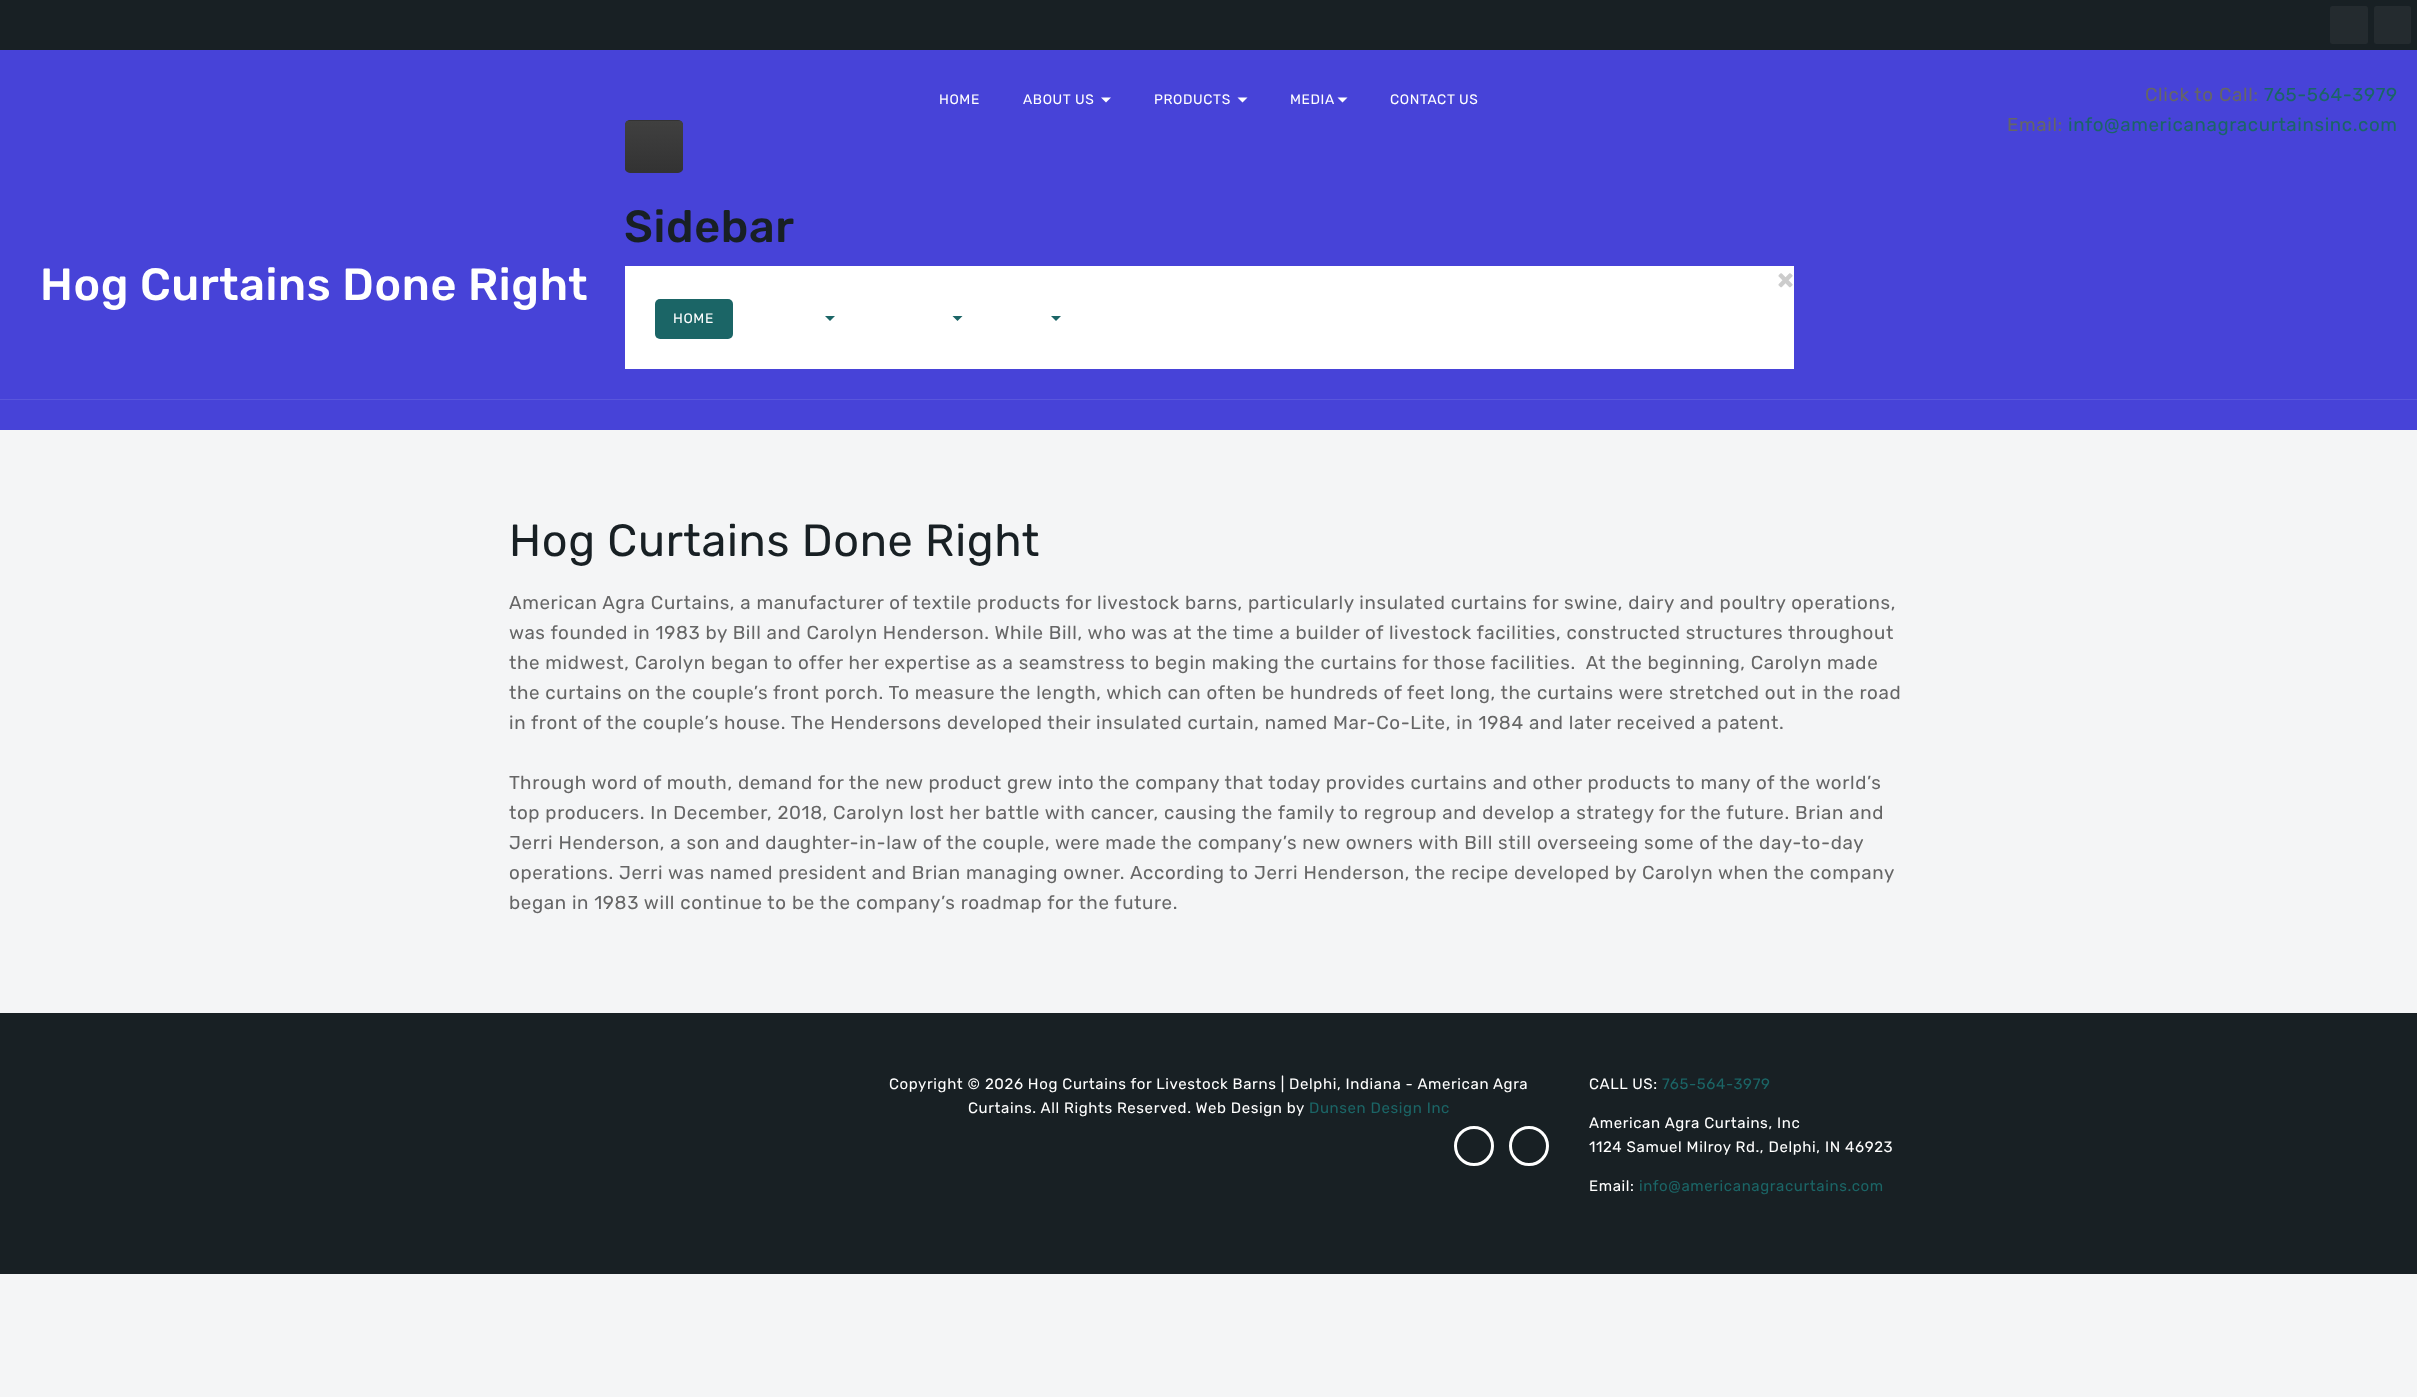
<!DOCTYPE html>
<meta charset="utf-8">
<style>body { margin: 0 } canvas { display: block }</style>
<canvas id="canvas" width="2417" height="1397"></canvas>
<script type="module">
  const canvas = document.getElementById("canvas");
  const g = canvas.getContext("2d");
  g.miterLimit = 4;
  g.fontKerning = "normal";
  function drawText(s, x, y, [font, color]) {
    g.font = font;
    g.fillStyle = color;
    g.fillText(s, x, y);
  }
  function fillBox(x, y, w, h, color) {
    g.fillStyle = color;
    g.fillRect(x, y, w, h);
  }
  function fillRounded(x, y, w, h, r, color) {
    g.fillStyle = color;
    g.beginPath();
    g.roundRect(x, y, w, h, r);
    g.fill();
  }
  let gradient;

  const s1 = ["500 45px Rubik", "#FFFFFF"];
  const s2 = ["13.75px Rubik", "#FFFFFF"];
  const s3 = ["500 45px Rubik", "#182024"];
  const s4 = ["bold 28px Rubik", "#CCCCCC"];
  const s5 = ["18.75px Rubik", "#666666"];
  const s6 = ["18.75px Rubik", "#1B6566"];
  const s7 = ["45px Rubik", "#182024"];
  const s8 = ["15px Rubik", "#FFFFFF"];
  const s9 = ["15px Rubik", "#1B6566"];

  fillBox(0, 0, 2417, 1397, "#F4F5F6");
  fillBox(0, 0, 2417, 50, "#182024");
  fillRounded(2330, 6, 38, 38, 2.5, "#242B2F");
  fillRounded(2374, 6, 37, 38, 2.5, "#242B2F");
  fillBox(0, 50, 2417, 380, "#4743D8");
  g.letterSpacing = "0.62px";
  drawText("Hog Curtains Done Right", 40, 300, s1);
  fillBox(0, 399, 2417, 1, "#5956DC");
  drawText("HOME", 939, 104, s2);
  drawText("ABOUT US", 1023, 104, s2);
  g.beginPath();
  g.moveTo(1101, 97.5);
  g.lineTo(1111, 97.5);
  g.lineTo(1106, 102.5);
  g.closePath();
  g.fill();
  drawText("PRODUCTS", 1154, 104, s2);
  g.beginPath();
  g.moveTo(1237.5, 97.5);
  g.lineTo(1247.5, 97.5);
  g.lineTo(1242.5, 102.5);
  g.closePath();
  g.fill();
  drawText("MEDIA", 1290, 104, s2);
  g.beginPath();
  g.moveTo(1337.5, 97.5);
  g.lineTo(1347.5, 97.5);
  g.lineTo(1342.5, 102.5);
  g.closePath();
  g.fill();
  drawText("CONTACT US", 1390, 104, s2);
  fillRounded(625, 120, 58, 53, 5, "#333333");
  g.save();
  g.beginPath();
  g.roundRect(625, 120, 58, 53, 5);
  g.clip();
  gradient = g.createLinearGradient(654, 121, 654, 171);
  gradient.addColorStop(0, "#404040");
  gradient.addColorStop(1, "#333333");
  g.fillStyle = gradient;
  g.fillRect(625, 121, 58, 50);
  g.restore();
  drawText("Sidebar", 624, 242, s3);
  fillBox(625, 266, 1169, 103, "#FFFFFF");
  g.letterSpacing = "0px";
  drawText("×", 1777, 289, s4);
  fillRounded(655, 299, 78, 40, 5, "#1B6566");
  g.letterSpacing = "0.62px";
  drawText("HOME", 673, 323, s2);
  g.fillStyle = "#1B6566";
  g.beginPath();
  g.moveTo(825, 316);
  g.lineTo(835, 316);
  g.lineTo(830, 321);
  g.closePath();
  g.fill();
  g.beginPath();
  g.moveTo(952.5, 316);
  g.lineTo(962.5, 316);
  g.lineTo(957.5, 321);
  g.closePath();
  g.fill();
  g.beginPath();
  g.moveTo(1051, 316);
  g.lineTo(1061, 316);
  g.lineTo(1056, 321);
  g.closePath();
  g.fill();
  drawText("Click to Call:", 2145, 101, s5);
  drawText("765-564-3979", 2264, 101, s6);
  drawText("Email:", 2007, 131, s5);
  drawText("info@americanagracurtainsinc.com", 2068, 131, s6);
  drawText("Hog Curtains Done Right", 509, 556, s7);
  drawText("American Agra Curtains, a manufacturer of textile products for livestock barns, particularly insulated curtains for swine, dairy and poultry operations,", 509, 609, s5);
  drawText("was founded in 1983 by Bill and Carolyn Henderson. While Bill, who was at the time a builder of livestock facilities, constructed structures throughout", 509, 639, s5);
  drawText("the midwest, Carolyn began to offer her expertise as a seamstress to begin making the curtains for those facilities.  At the beginning, Carolyn made", 509, 669, s5);
  drawText("the curtains on the couple’s front porch. To measure the length, which can often be hundreds of feet long, the curtains were stretched out in the road", 509, 699, s5);
  drawText("in front of the couple’s house. The Hendersons developed their insulated curtain, named Mar-Co-Lite, in 1984 and later received a patent.", 509, 729, s5);
  drawText("Through word of mouth, demand for the new product grew into the company that today provides curtains and other products to many of the world’s", 509, 789, s5);
  drawText("top producers. In December, 2018, Carolyn lost her battle with cancer, causing the family to regroup and develop a strategy for the future. Brian and", 509, 819, s5);
  drawText("Jerri Henderson, a son and daughter-in-law of the couple, were made the company’s new owners with Bill still overseeing some of the day-to-day", 509, 849, s5);
  drawText("operations. Jerri was named president and Brian managing owner. According to Jerri Henderson, the recipe developed by Carolyn when the company", 509, 879, s5);
  drawText("began in 1983 will continue to be the company’s roadmap for the future.", 509, 909, s5);
  fillBox(0, 1013, 2417, 261, "#182024");
  drawText("Copyright © 2026 Hog Curtains for Livestock Barns | Delphi, Indiana - American Agra", 889, 1089, s8);
  drawText("Curtains. All Rights Reserved. Web Design by", 968, 1113, s8);
  drawText("Dunsen Design Inc", 1309, 1113, s9);
  g.beginPath();
  g.arc(1474, 1146, 18.5, 0, Math.PI * 2);
  g.strokeStyle = "#FFFFFF";
  g.lineWidth = 3;
  g.stroke();
  g.beginPath();
  g.arc(1529, 1146, 18.5, 0, Math.PI * 2);
  g.stroke();
  drawText("CALL US:", 1589, 1089, s8);
  drawText("765-564-3979", 1662, 1089, s9);
  drawText("American Agra Curtains, Inc", 1589, 1128, s8);
  drawText("1124 Samuel Milroy Rd., Delphi, IN 46923", 1589, 1152, s8);
  drawText("Email:", 1589, 1191, s8);
  drawText("info@americanagracurtains.com", 1639, 1191, s9);
</script>
